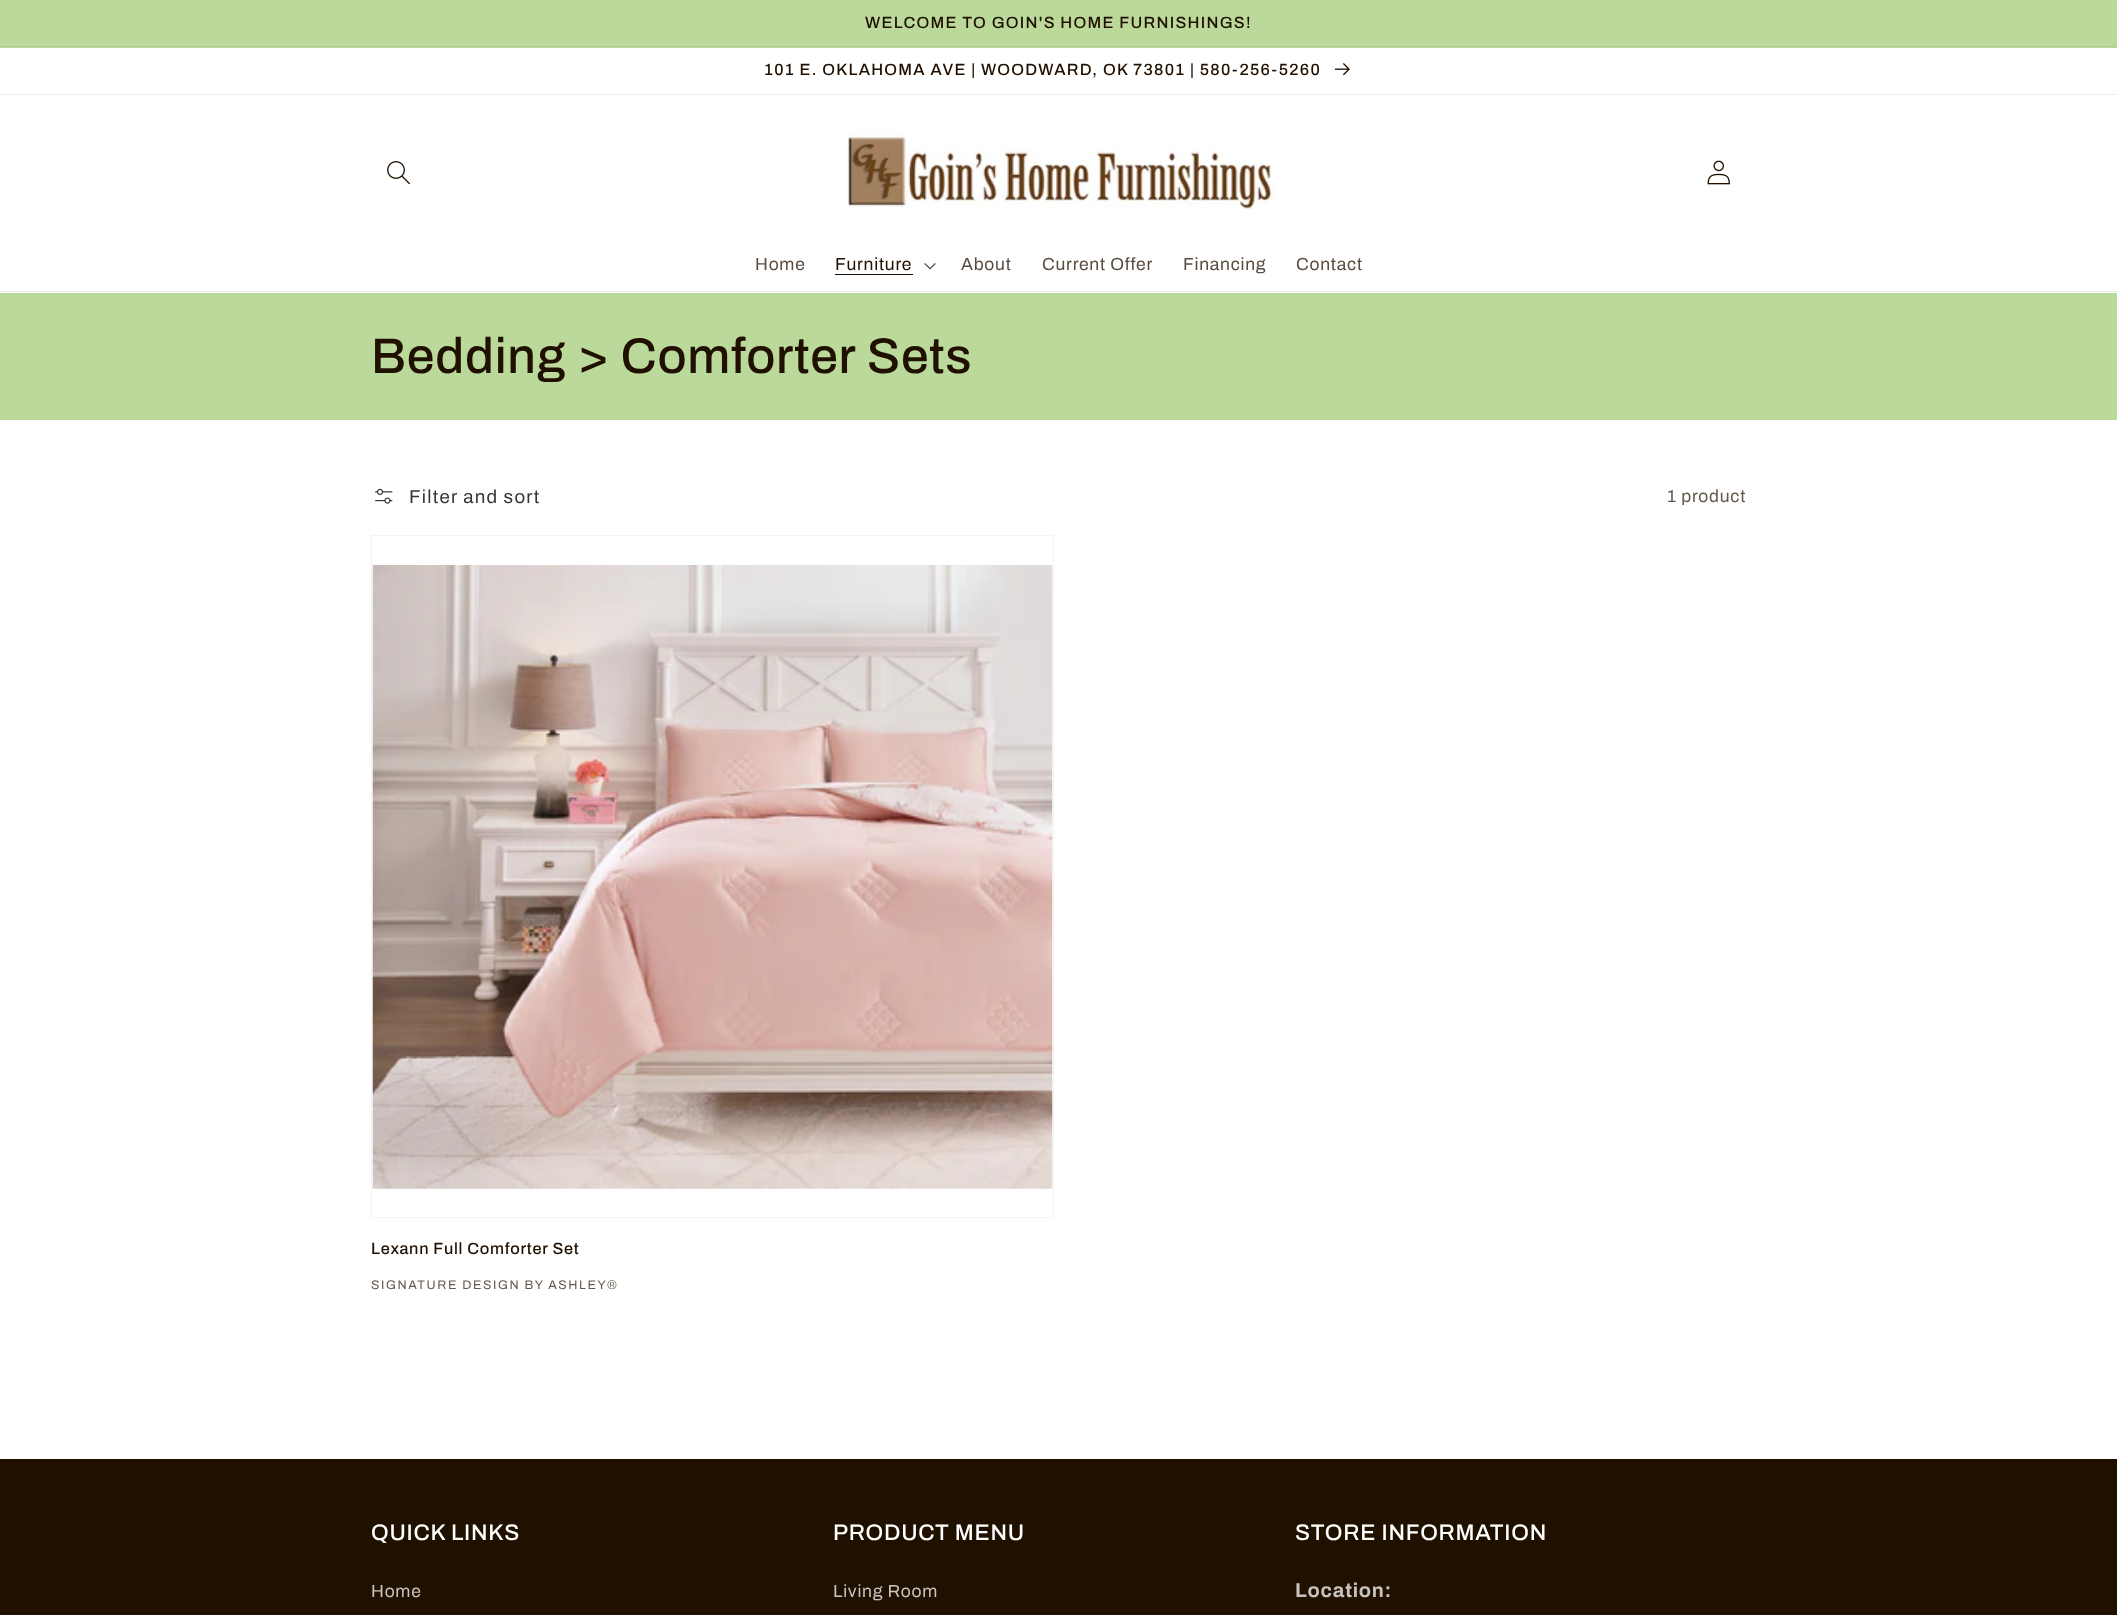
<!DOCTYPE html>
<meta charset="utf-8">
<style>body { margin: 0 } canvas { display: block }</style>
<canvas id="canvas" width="2117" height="1615"></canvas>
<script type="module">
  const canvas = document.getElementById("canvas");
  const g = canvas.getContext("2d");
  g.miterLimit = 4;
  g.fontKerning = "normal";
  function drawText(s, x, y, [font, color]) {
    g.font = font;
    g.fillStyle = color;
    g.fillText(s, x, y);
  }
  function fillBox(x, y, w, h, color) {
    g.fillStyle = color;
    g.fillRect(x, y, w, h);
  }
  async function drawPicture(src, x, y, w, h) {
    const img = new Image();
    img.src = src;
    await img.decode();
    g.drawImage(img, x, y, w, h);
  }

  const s1 = ["500 16.25px Archivo", "#201000"];
  const s2 = ["17.5px Archivo", "#584C40"];
  const s3 = ["17.5px Archivo", "#201000"];
  const s4 = ["500 50px Archivo", "#201000"];
  const s5 = ["18.75px Archivo", "#363636"];
  const s6 = ["17.5px Archivo", "#63584D"];
  const s7 = ["12.5px Archivo", "#63584D"];
  const s8 = ["500 22.5px Archivo", "#FFFFFF"];
  const s9 = ["17.5px Archivo", "#C7C3BF"];
  const s10 = ["bold 20px Archivo", "#C7C3BF"];

  fillBox(0, 0, 2117, 1615, "#FFFFFF");
  fillBox(0, 0, 2117, 48, "#BCD99C");
  fillBox(0, 46, 2117, 1, "#B0C990");
  g.letterSpacing = "1.25px";
  drawText("WELCOME TO GOIN'S HOME FURNISHINGS!", 865, 28, s1);
  fillBox(0, 94, 2117, 1, "#EDECEB");
  drawText("101 E. OKLAHOMA AVE | WOODWARD, OK 73801 | 580-256-5260", 764, 75, s1);
  await drawPicture("pic1.png", 1335, 63, 15, 13);
  fillBox(0, 291, 2117, 1, "#EDECEB");
  await drawPicture("pic2.png", 387, 161, 23, 24);
  await drawPicture("pic3.png", 847, 131, 428, 79);
  await drawPicture("pic4.png", 1707, 160, 23, 25);
  g.letterSpacing = "0.75px";
  drawText("Home", 755, 270, s2);
  drawText("Furniture", 835, 270, s3);
  fillBox(835, 274, 78, 1, "#201000");
  await drawPicture("pic5.png", 924, 263, 12, 7);
  drawText("About", 961, 270, s2);
  drawText("Current Offer", 1042, 270, s2);
  drawText("Financing", 1183, 270, s2);
  drawText("Contact", 1296, 270, s2);
  fillBox(0, 293, 2117, 127, "#BCD99C");
  drawText("Bedding > Comforter Sets", 371, 373, s4);
  await drawPicture("pic6.png", 375, 488, 18, 16);
  g.letterSpacing = "1.25px";
  drawText("Filter and sort", 409, 503, s5);
  g.letterSpacing = "0.75px";
  drawText("1 product", 1667, 502, s6);
  g.strokeStyle = "#F4F3F2";
  g.strokeRect(371.5, 535.5, 682, 682);
  await drawPicture("pic7.png", 372, 565, 681, 624);
  drawText("Lexann Full Comforter Set", 371, 1254, s1);
  g.letterSpacing = "1.6px";
  drawText("SIGNATURE DESIGN BY ASHLEY®", 371, 1289, s7);
  fillBox(0, 1459, 2117, 156, "#201000");
  g.letterSpacing = "0.75px";
  drawText("QUICK LINKS", 371, 1540, s8);
  drawText("Home", 371, 1597, s9);
  drawText("PRODUCT MENU", 833, 1540, s8);
  drawText("Living Room", 833, 1597, s9);
  drawText("STORE INFORMATION", 1295, 1540, s8);
  drawText("Location:", 1295, 1597, s10);
</script>
